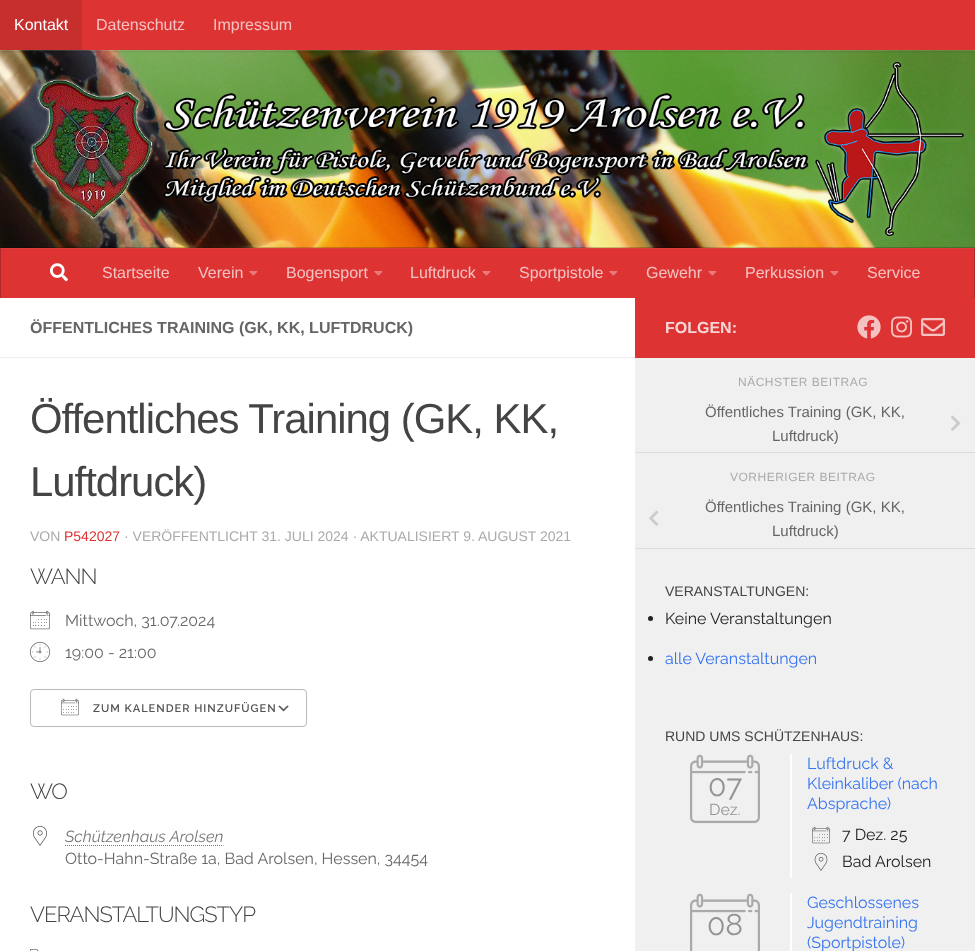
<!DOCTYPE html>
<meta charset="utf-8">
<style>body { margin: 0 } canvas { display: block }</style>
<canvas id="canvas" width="975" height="951"></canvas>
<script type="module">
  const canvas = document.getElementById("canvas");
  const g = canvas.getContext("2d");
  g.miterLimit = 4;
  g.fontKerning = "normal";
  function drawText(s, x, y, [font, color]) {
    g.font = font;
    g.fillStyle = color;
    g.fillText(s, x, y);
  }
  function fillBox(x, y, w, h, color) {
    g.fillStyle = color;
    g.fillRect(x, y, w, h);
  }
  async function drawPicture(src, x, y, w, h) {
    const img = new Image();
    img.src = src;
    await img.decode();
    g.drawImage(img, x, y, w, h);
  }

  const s1 = ["16px Liberation Sans", "#FFFFFF"];
  const s2 = ["16px Liberation Sans", "#F5C2C2"];
  const s3 = ["bold 16px Liberation Sans", "#666666"];
  const s4 = ["41.9px Liberation Sans", "#444444"];
  const s5 = ["14px Liberation Sans", "#AAAAAA"];
  const s6 = ["14px Liberation Sans", "#DD3333"];
  const s7 = ["300 22px Raleway", "#444444"];
  const s8 = ["16px Raleway", "#666666"];
  const s9 = ["600 11px Raleway", "#545454"];
  const s10 = ["italic 16px Raleway", "#787878"];
  const s11 = ["bold 16px Liberation Sans", "#F8D6D6"];
  const s12 = ["12px Liberation Sans", "#AAAAAA"];
  const s13 = ["15px Liberation Sans", "#666666"];
  const s14 = ["14px Liberation Sans", "#444444"];
  const s15 = ["16px Raleway", "#212121"];
  const s16 = ["16px Raleway", "#3372F0"];
  const s17 = ["30px Raleway", "#939393"];
  const s18 = ["16px Raleway", "#939393"];

  fillBox(0, 0, 975, 951, "#DD3333");
  await drawPicture("pic1.png", 0, 50, 975, 198);
  fillBox(0, 50, 975, 1, "rgba(255, 255, 255, 0.15)");
  g.save();
  g.beginPath();
  g.rect(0, 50, 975, 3);
  g.clip();
  g.fillStyle = "rgba(0, 0, 0, 0.2)";
  g.filter = "blur(2.5px)";
  g.beginPath();
  g.rect(0, 0, 975, 50);
  g.fill();
  g.filter = "none";
  g.restore();
  fillBox(0, 0, 82, 50, "#C72E2E");
  drawText("Kontakt", 14, 30, s1);
  drawText("Datenschutz", 96, 30, s2);
  drawText("Impressum", 213, 30, s2);
  fillBox(0, 247, 975, 1, "rgba(0, 0, 0, 0.2)");
  fillBox(974, 248, 1, 50, "#B12929");
  fillBox(0, 248, 1, 50, "#B12929");
  fillBox(0, 248, 975, 1, "rgba(255, 255, 255, 0.05)");
  await drawPicture("pic2.png", 50, 263, 18, 19);
  drawText("Startseite", 102, 278, s2);
  drawText("Verein", 198, 278, s2);
  await drawPicture("pic3.png", 249, 271, 9, 5);
  drawText("Bogensport", 286, 278, s2);
  await drawPicture("pic3.png", 374, 271, 9, 5);
  drawText("Luftdruck", 410, 278, s2);
  await drawPicture("pic3.png", 482, 271, 9, 5);
  drawText("Sportpistole", 519, 278, s2);
  await drawPicture("pic3.png", 609, 271, 9, 5);
  drawText("Gewehr", 646, 278, s2);
  await drawPicture("pic3.png", 708, 271, 9, 5);
  drawText("Perkussion", 745, 278, s2);
  await drawPicture("pic3.png", 830, 271, 9, 5);
  drawText("Service", 867, 278, s2);
  fillBox(0, 298, 635, 653, "#FFFFFF");
  fillBox(0, 357, 635, 1, "#EEEEEE");
  drawText("ÖFFENTLICHES TRAINING (GK, KK, LUFTDRUCK)", 30, 333, s3);
  g.letterSpacing = "-1px";
  drawText("Öffentliches Training (GK, KK,", 30, 433, s4);
  drawText("Luftdruck)", 30, 496, s4);
  g.letterSpacing = "0px";
  drawText("VON", 30, 541, s5);
  drawText("P542027", 64, 541, s6);
  drawText("· VERÖFFENTLICHT 31. JULI 2024 · AKTUALISIERT 9. AUGUST 2021", 124, 541, s5);
  g.letterSpacing = "-1px";
  drawText("WANN", 30, 584, s7);
  await drawPicture("pic4.png", 30, 610, 20, 20);
  g.letterSpacing = "0px";
  drawText("Mittwoch, 31.07.2024", 65, 626, s8);
  await drawPicture("pic5.png", 30, 642, 20, 20);
  drawText("19:00 - 21:00", 65, 658, s8);
  await drawPicture("pic6.png", 278, 705, 11, 7);
  g.beginPath();
  g.roundRect(30.5, 689.5, 276, 37, 3.5);
  g.strokeStyle = "#BABABA";
  g.stroke();
  await drawPicture("pic7.png", 61, 698, 18, 18);
  g.letterSpacing = "1px";
  drawText("ZUM KALENDER HINZUFÜGEN", 93, 712, s9);
  g.letterSpacing = "-1px";
  drawText("WO", 30, 799, s7);
  await drawPicture("pic8.png", 33, 826, 14, 20);
  g.letterSpacing = "0px";
  drawText("Schützenhaus Arolsen", 65, 842, s10);
  g.beginPath();
  g.moveTo(65, 845.5);
  g.lineTo(223.5, 845.5);
  g.strokeStyle = "#787878";
  g.setLineDash([1, 1]);
  g.stroke();
  drawText("Otto-Hahn-Straße 1a, Bad Arolsen, Hessen, 34454", 65, 864, s8);
  g.letterSpacing = "-1px";
  drawText("VERANSTALTUNGSTYP", 30, 922, s7);
  await drawPicture("pic9.png", 30, 949, 9, 2);
  g.letterSpacing = "0px";
  drawText("FOLGEN:", 665, 333, s11);
  await drawPicture("pic10.png", 857, 315, 24, 24);
  await drawPicture("pic11.png", 891, 316, 22, 22);
  await drawPicture("pic12.png", 921, 318, 24, 18);
  fillBox(635, 358, 340, 593, "#F0F0F0");
  g.letterSpacing = "0.5px";
  drawText("NÄCHSTER BEITRAG", 738, 386, s12);
  fillBox(635, 452, 340, 1, "#DDDDDD");
  g.letterSpacing = "0px";
  drawText("Öffentliches Training (GK, KK,", 705, 417, s13);
  await drawPicture("pic13.png", 951, 415, 10, 16);
  drawText("Luftdruck)", 772, 441, s13);
  g.letterSpacing = "0.5px";
  drawText("VORHERIGER BEITRAG", 730, 481, s12);
  fillBox(635, 548, 340, 1, "#DDDDDD");
  g.letterSpacing = "0px";
  drawText("Öffentliches Training (GK, KK,", 705, 512, s13);
  await drawPicture("pic14.png", 649, 510, 10, 16);
  drawText("Luftdruck)", 772, 536, s13);
  drawText("VERANSTALTUNGEN:", 665, 596, s14);
  g.fillStyle = "#212121";
  g.beginPath();
  g.arc(650.5, 618.5, 2.5, 0, Math.PI * 2);
  g.fill();
  drawText("Keine Veranstaltungen", 665, 624, s15);
  g.beginPath();
  g.arc(650.5, 658.5, 2.5, 0, Math.PI * 2);
  g.fill();
  drawText("alle Veranstaltungen", 665, 664, s16);
  drawText("RUND UMS SCHÜTZENHAUS:", 665, 741, s14);
  await drawPicture("pic15.png", 690, 754, 70, 70);
  drawText("07", 708, 796, s17);
  drawText("Dez.", 709, 815, s18);
  fillBox(790, 754, 2, 124, "#FFFFFF");
  drawText("Luftdruck &", 807, 769, s16);
  drawText("Kleinkaliber (nach", 807, 789, s16);
  drawText("Absprache)", 807, 809, s16);
  await drawPicture("pic16.png", 812, 826, 18, 18);
  drawText("7 Dez. 25", 842, 840, s15);
  await drawPicture("pic17.png", 814, 853, 14, 18);
  drawText("Bad Arolsen", 842, 867, s15);
  await drawPicture("pic18.png", 690, 893, 70, 58);
  drawText("08", 707, 935, s17);
  fillBox(790, 893, 2, 58, "#FFFFFF");
  drawText("Geschlossenes", 807, 908, s16);
  drawText("Jugendtraining", 807, 928, s16);
  drawText("(Sportpistole)", 807, 948, s16);
</script>
